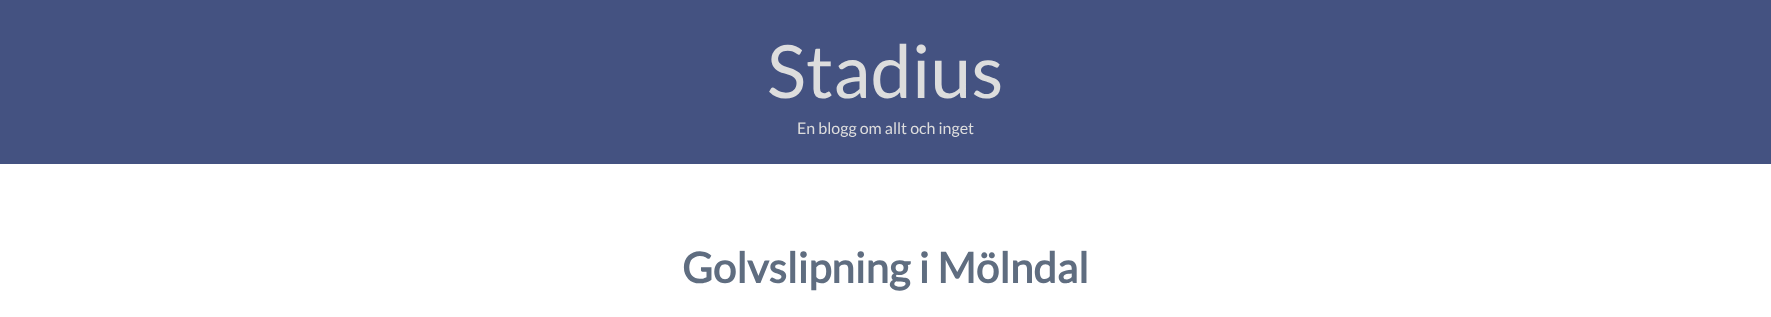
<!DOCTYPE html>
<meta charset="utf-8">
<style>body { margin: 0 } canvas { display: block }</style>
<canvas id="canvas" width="1771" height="317"></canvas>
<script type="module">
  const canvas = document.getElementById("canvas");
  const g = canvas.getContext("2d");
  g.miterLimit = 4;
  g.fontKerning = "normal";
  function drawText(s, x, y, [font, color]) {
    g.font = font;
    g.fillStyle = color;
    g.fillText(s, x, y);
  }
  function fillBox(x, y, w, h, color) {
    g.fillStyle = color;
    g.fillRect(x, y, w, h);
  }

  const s1 = ["73.5px Lato", "#DDDDDD"];
  const s2 = ["16px Lato", "#DDDDDD"];
  const s3 = ["bold 42px Lato", "#5F6D80"];

  fillBox(0, 0, 1771, 317, "#FFFFFF");
  fillBox(0, 0, 1771, 164, "#445281");
  drawText("Stadius", 767, 98, s1);
  drawText("En blogg om allt och inget", 797, 134, s2);
  drawText("Golvslipning i Mölndal", 682, 283, s3);
</script>
